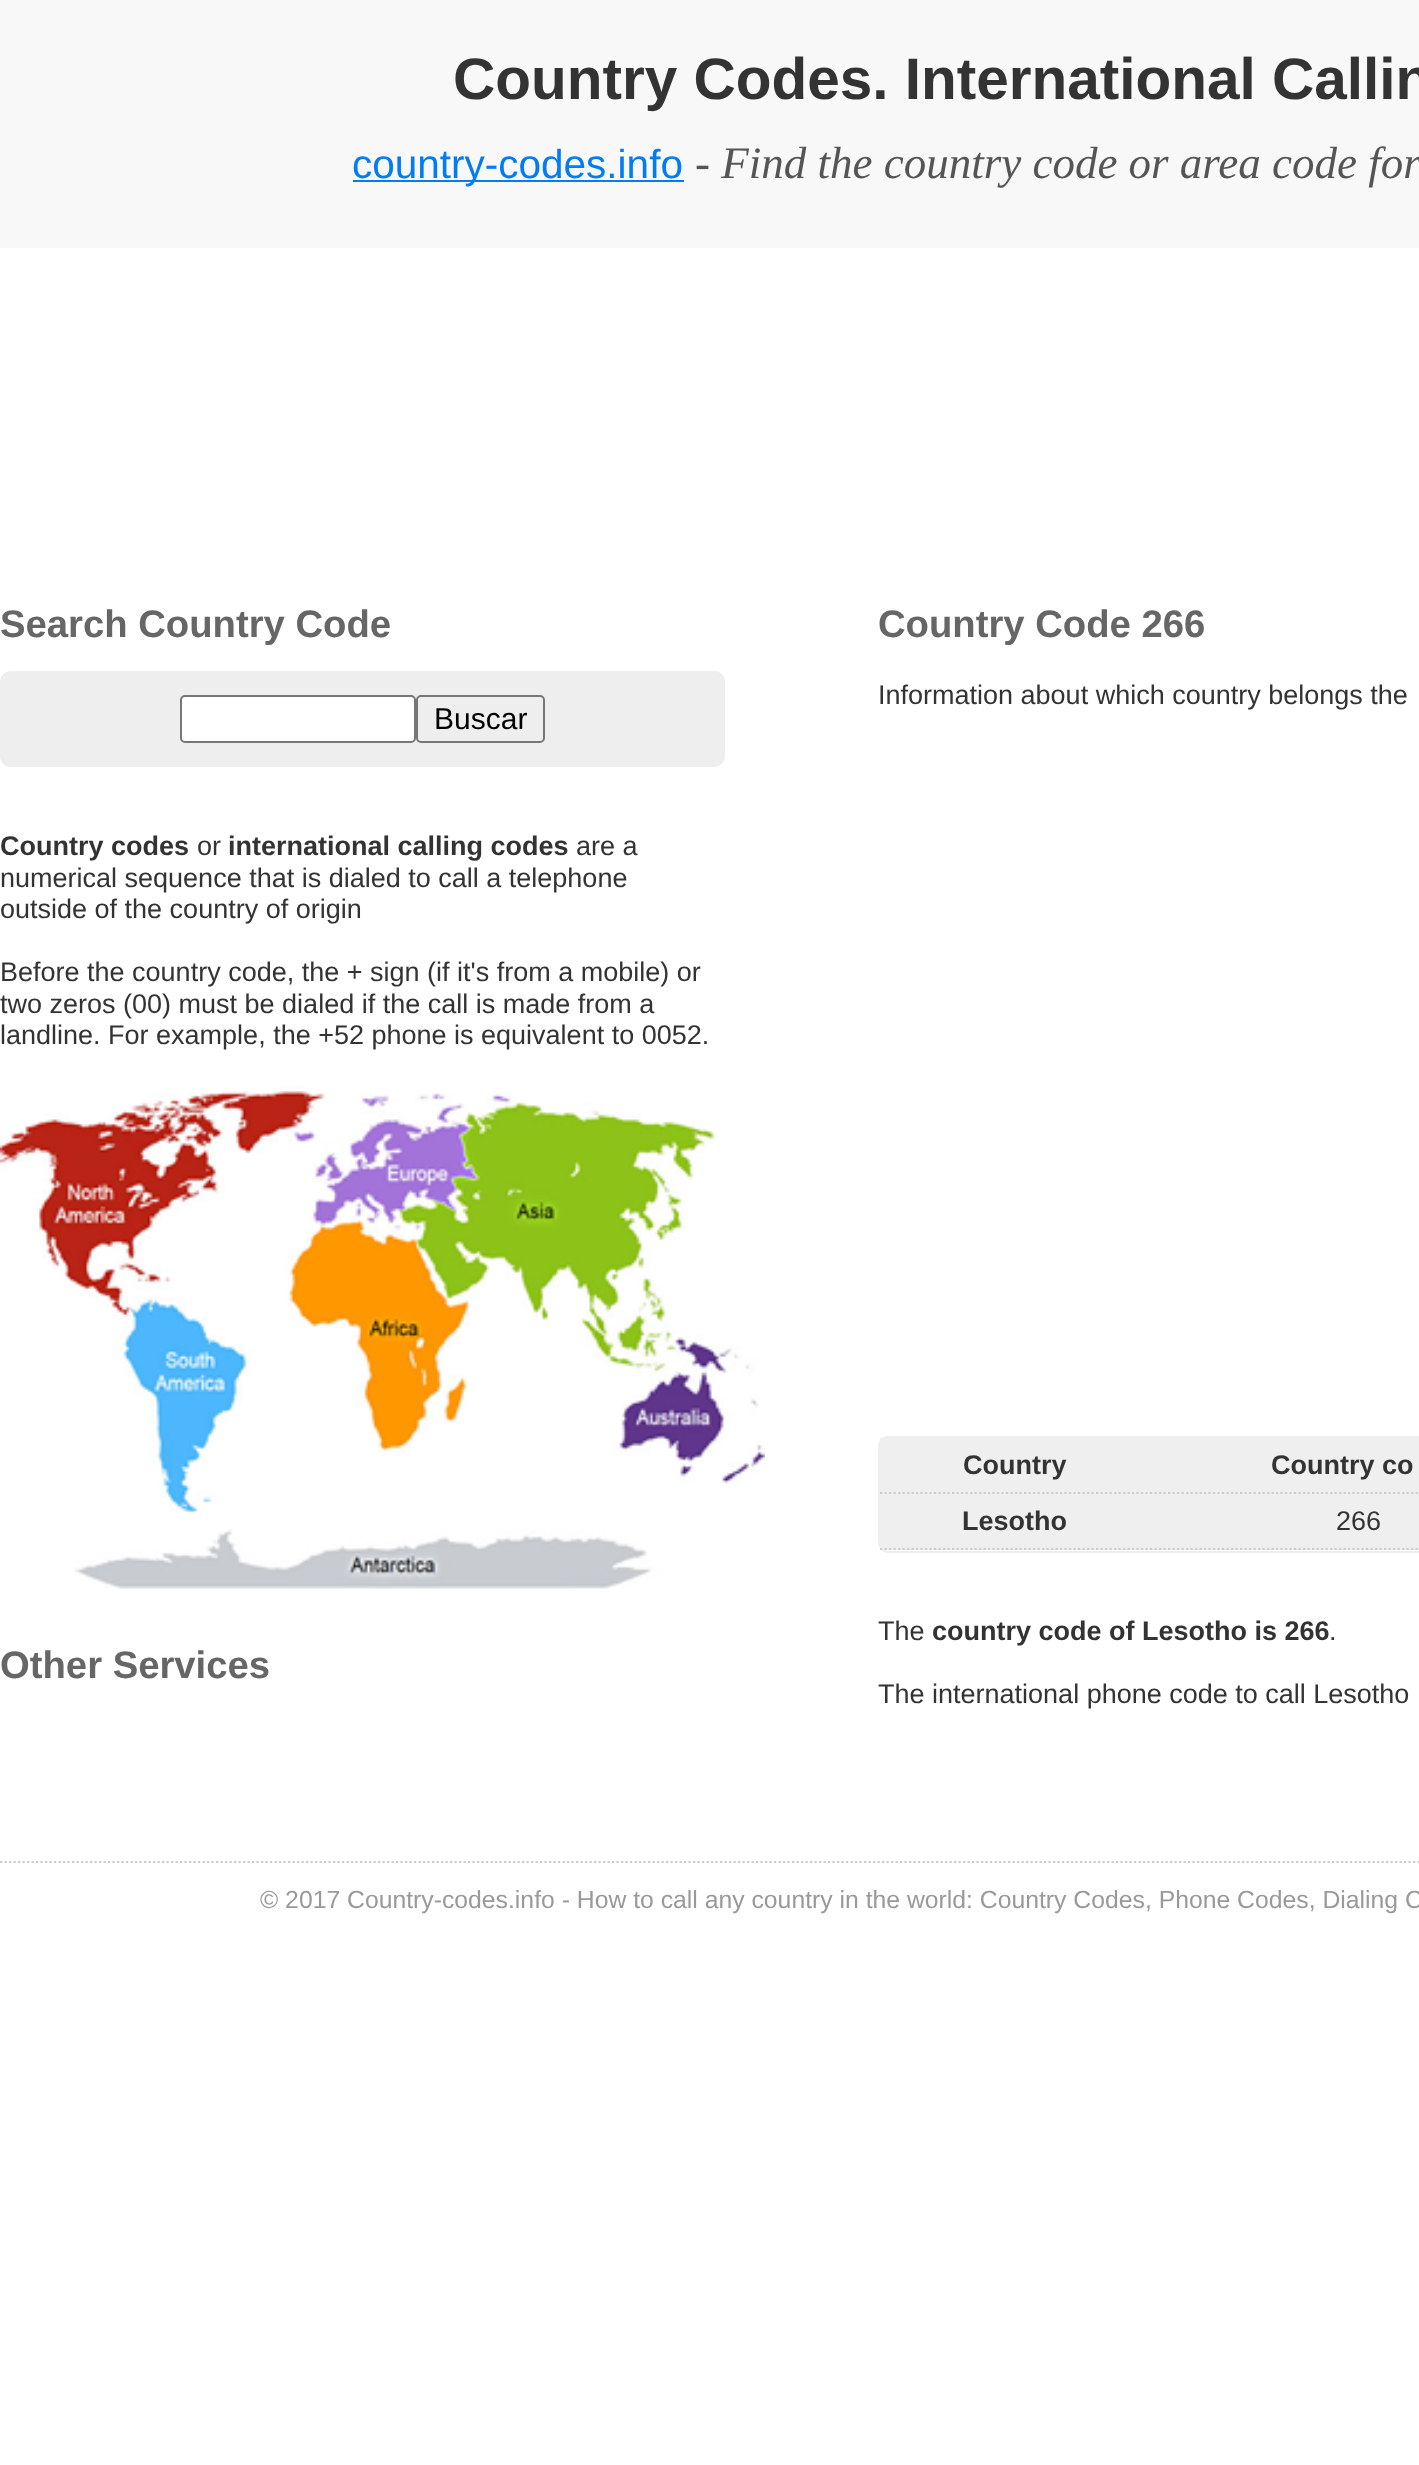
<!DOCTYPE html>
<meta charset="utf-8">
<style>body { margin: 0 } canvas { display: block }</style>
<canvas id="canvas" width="1419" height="2465"></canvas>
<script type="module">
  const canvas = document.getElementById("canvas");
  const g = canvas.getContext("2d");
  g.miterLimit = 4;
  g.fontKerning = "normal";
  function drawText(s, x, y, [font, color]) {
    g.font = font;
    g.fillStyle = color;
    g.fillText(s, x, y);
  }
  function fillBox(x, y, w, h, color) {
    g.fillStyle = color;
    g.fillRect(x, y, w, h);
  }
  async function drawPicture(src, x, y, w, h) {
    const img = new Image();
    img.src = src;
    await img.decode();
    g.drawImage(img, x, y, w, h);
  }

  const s1 = ["bold 58.5px Liberation Sans", "#333333"];
  const s2 = ["40.5px Liberation Sans", "#007CF4"];
  const s3 = ["italic 45px Liberation Serif", "#555555"];
  const s4 = ["bold 38.25px Liberation Sans", "#666666"];
  const s5 = ["30px Liberation Sans", "#000000"];
  const s6 = ["bold 27px Liberation Sans", "#333333"];
  const s7 = ["27px Liberation Sans", "#333333"];
  const s8 = ["24.75px Liberation Sans", "#999999"];

  fillBox(0, 0, 1419, 2465, "#FFFFFF");
  fillBox(0, 0, 1419, 248, "#F8F8F8");
  drawText("Country Codes. International Callin", 453, 99, s1);
  fillBox(353, 180, 331, 2, "#007CF4");
  drawText("country-codes.info", 352, 178, s2);
  drawText("- Find the country code or area code for", 695, 178, s3);
  drawText("Search Country Code", 0, 637, s4);
  g.fillStyle = "#EEEEEE";
  g.beginPath();
  g.roundRect(1, 672, 723, 94, 10);
  g.fill();
  g.strokeStyle = "#EEEEEE";
  g.lineWidth = 2;
  g.stroke();
  g.fillStyle = "#FFFFFF";
  g.beginPath();
  g.roundRect(181, 696, 234, 46, 4);
  g.fill();
  g.strokeStyle = "#767676";
  g.stroke();
  g.beginPath();
  g.roundRect(417, 696, 127, 46, 4);
  g.stroke();
  drawText("Buscar", 434, 729, s5);
  drawText("Country codes", 0, 855, s6);
  drawText("or", 197, 855, s7);
  drawText("international calling codes", 228, 855, s6);
  drawText("are a", 576, 855, s7);
  drawText("numerical sequence that is dialed to call a telephone", 0, 887, s7);
  drawText("outside of the country of origin", 0, 918, s7);
  drawText("Before the country code, the + sign (if it's from a mobile) or", 0, 981, s7);
  drawText("two zeros (00) must be dialed if the call is made from a", 0, 1013, s7);
  drawText("landline. For example, the +52 phone is equivalent to 0052.", 0, 1044, s7);
  await drawPicture("pic1.png", 0, 1085, 765, 504);
  drawText("Other Services", 0, 1678, s4);
  drawText("Country Code 266", 878, 637, s4);
  drawText("Information about which country belongs the", 878, 704, s7);
  g.beginPath();
  g.roundRect(879, 1437, 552, 115, 10);
  g.strokeStyle = "#EEEEEE";
  g.stroke();
  fillBox(880, 1438, 539, 56, "#EFEFEF");
  g.beginPath();
  g.moveTo(880, 1493);
  g.lineTo(1150, 1493);
  g.strokeStyle = "#CCCCCC";
  g.lineWidth = 2.2;
  g.setLineDash([2.25, 2.25]);
  g.stroke();
  drawText("Country", 963, 1474, s6);
  g.beginPath();
  g.moveTo(1150, 1493);
  g.lineTo(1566, 1493);
  g.stroke();
  drawText("Country co", 1271, 1474, s6);
  fillBox(880, 1494, 539, 56, "#EFEFEF");
  g.beginPath();
  g.moveTo(880, 1549);
  g.lineTo(1150, 1549);
  g.stroke();
  drawText("Lesotho", 962, 1530, s6);
  g.beginPath();
  g.moveTo(1150, 1549);
  g.lineTo(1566, 1549);
  g.stroke();
  drawText("266", 1336, 1530, s7);
  drawText("The", 878, 1640, s7);
  drawText("country code of Lesotho is 266", 932, 1640, s6);
  drawText(".", 1329, 1640, s7);
  drawText("The international phone code to call Lesotho", 878, 1703, s7);
  g.beginPath();
  g.moveTo(0, 1862);
  g.lineTo(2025, 1862);
  g.stroke();
  drawText("© 2017 Country-codes.info - How to call any country in the world: Country Codes, Phone Codes, Dialing C", 260, 1908, s8);
</script>
